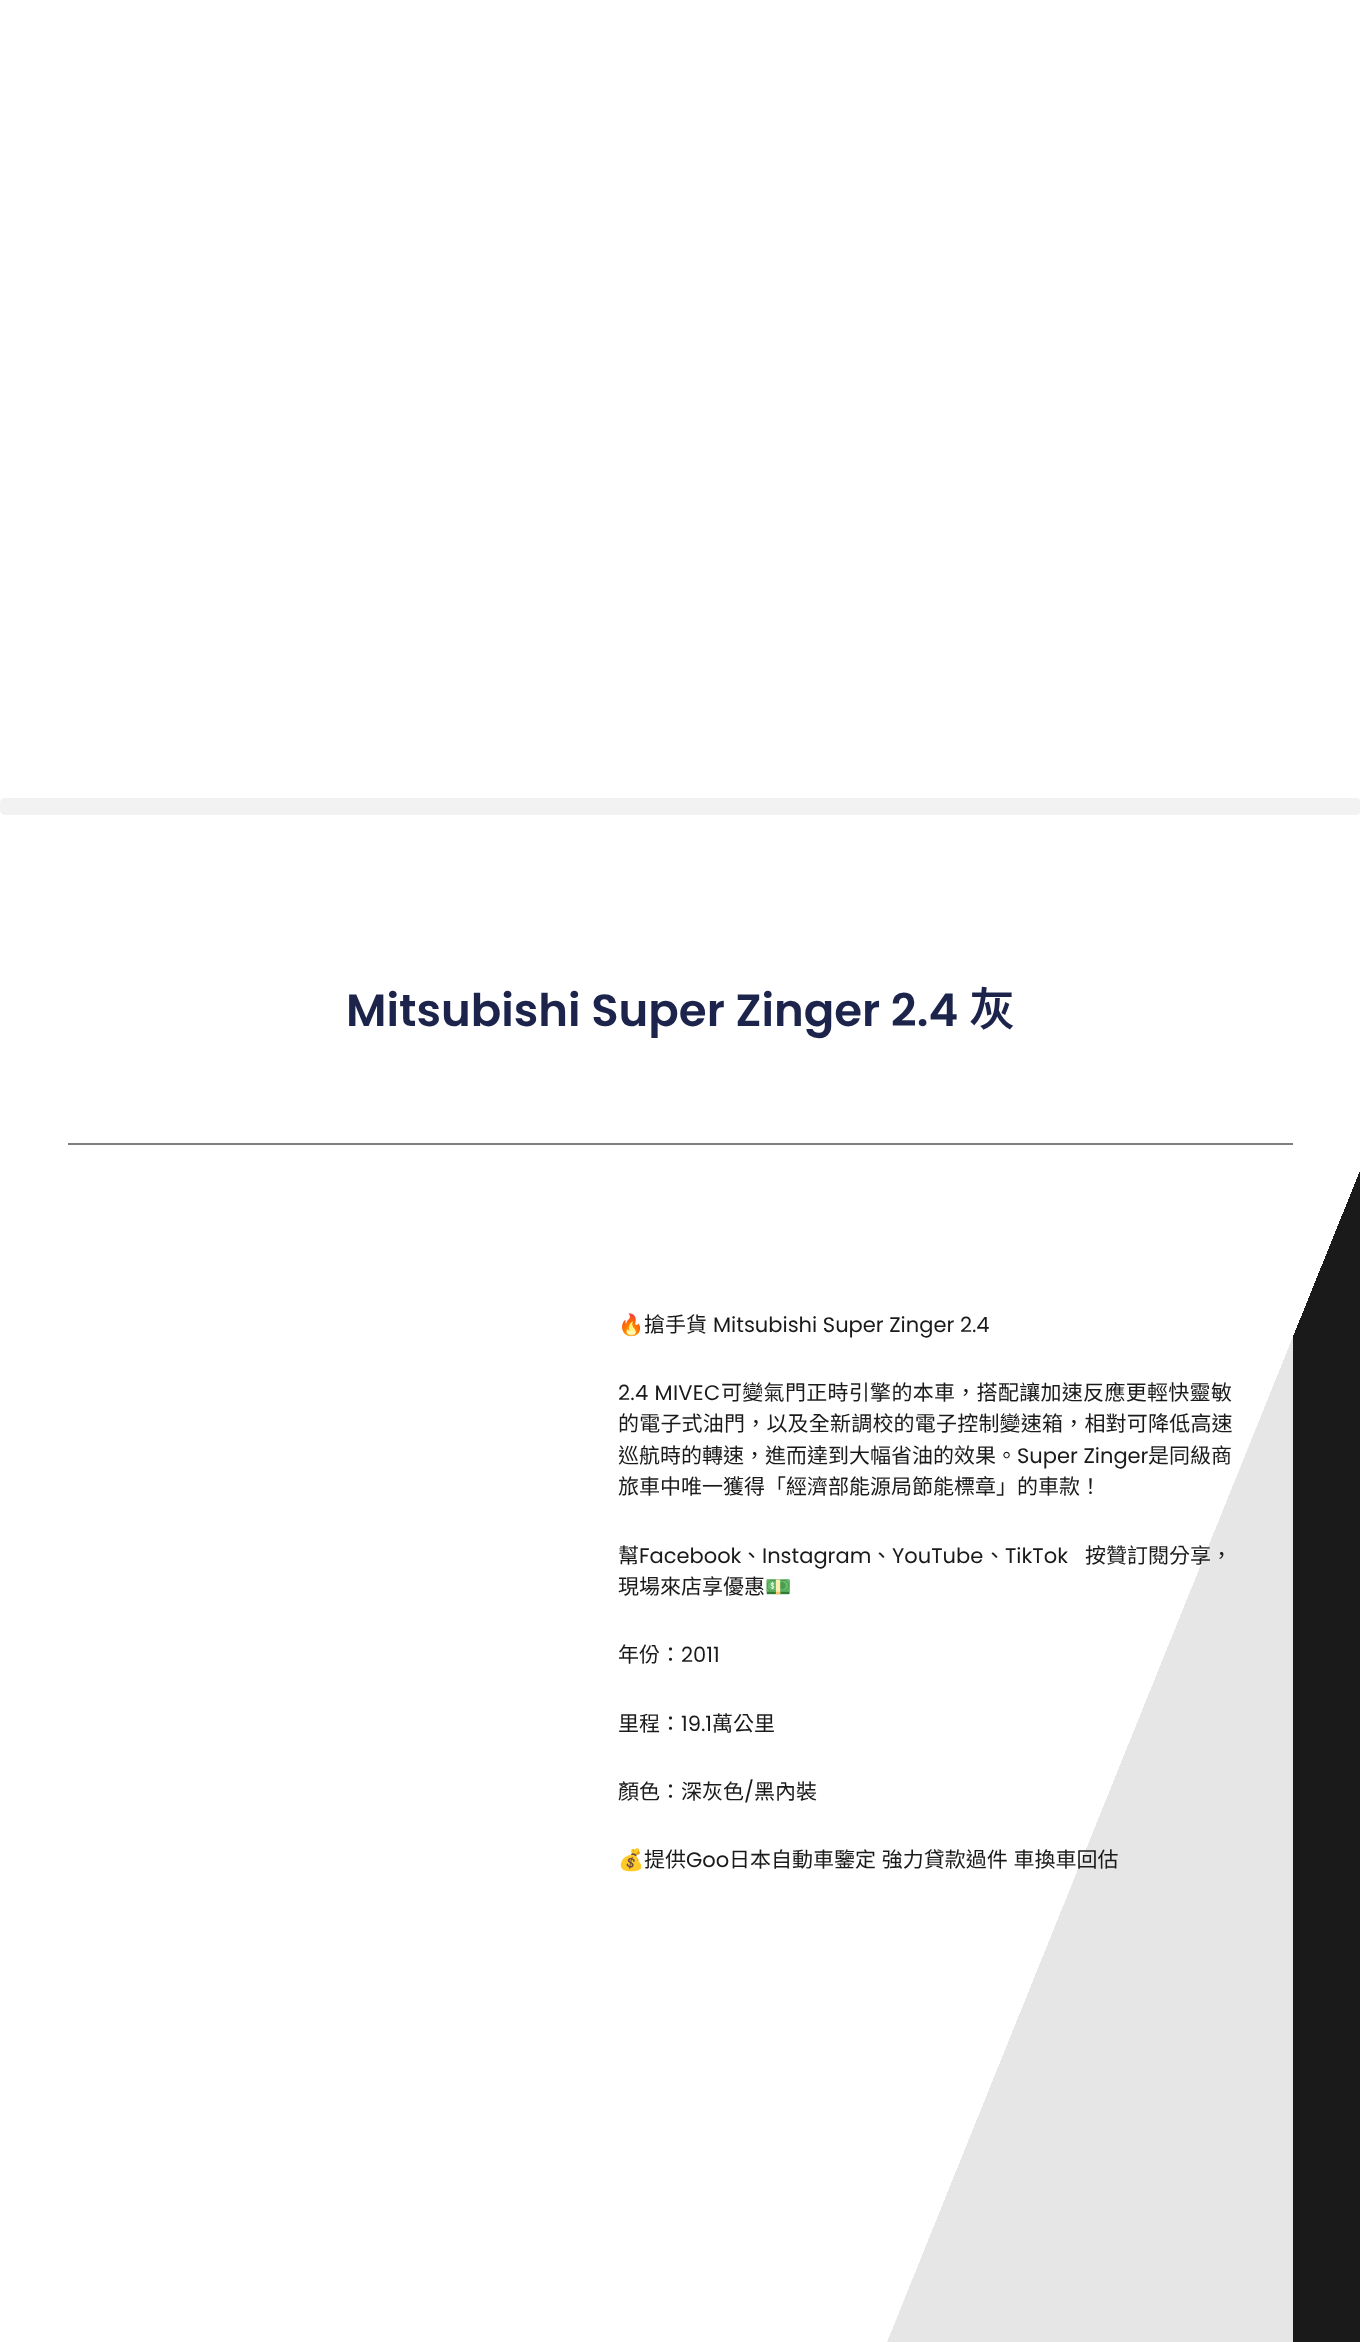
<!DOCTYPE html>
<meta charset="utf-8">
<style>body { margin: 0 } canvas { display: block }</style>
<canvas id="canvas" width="1360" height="2342"></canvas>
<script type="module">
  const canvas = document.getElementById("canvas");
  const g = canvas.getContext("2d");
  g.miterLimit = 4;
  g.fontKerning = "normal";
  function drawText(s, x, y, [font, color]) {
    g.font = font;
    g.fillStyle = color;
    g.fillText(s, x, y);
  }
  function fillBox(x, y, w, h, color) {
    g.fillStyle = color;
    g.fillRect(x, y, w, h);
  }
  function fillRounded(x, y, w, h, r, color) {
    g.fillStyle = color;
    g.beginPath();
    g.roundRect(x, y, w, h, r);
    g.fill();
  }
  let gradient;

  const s1 = ["600 45px Poppins", "#1C244B"];
  const s2 = ["bold 45px Noto Sans CJK TC", "#1C244B"];
  const s3 = ["21px Noto Color Emoji", "#1A1A1A"];
  const s4 = ["21px Noto Sans CJK TC", "#1A1A1A"];
  const s5 = ["21px Poppins", "#1A1A1A"];

  fillBox(0, 0, 1360, 2342, "#FFFFFF");
  gradient = g.createLinearGradient(-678, 1679, 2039, 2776);
  gradient.addColorStop(0.58, "#FFFFFF");
  gradient.addColorStop(0.58, "#1A1A1A");
  g.fillStyle = gradient;
  g.fillRect(887, 1172, 473, 1170);
  gradient = g.createLinearGradient(-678, 1679, 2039, 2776);
  gradient.addColorStop(0.58, "#FFFFFF");
  gradient.addColorStop(0.58, "#E6E6E6");
  g.fillStyle = gradient;
  g.fillRect(887, 1338, 406, 1004);
  fillRounded(0, 798, 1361, 17, 5, "#F2F2F2");
  drawText("Mitsubishi Super Zinger 2.4", 346, 1026, s1);
  drawText("灰", 969, 1026, s2);
  fillBox(68, 1143, 1225, 2, "#7E7E7E");
  drawText("🔥", 618, 1332, s3);
  drawText("搶手貨", 644, 1332, s4);
  drawText("Mitsubishi Super Zinger 2.4", 713, 1332, s5);
  g.letterSpacing = "0.3px";
  drawText("2.4 MIVEC", 618, 1400, s5);
  drawText("可變氣門正時引擎的本車，搭配讓加速反應更輕快靈敏", 721, 1400, s4);
  g.letterSpacing = "0.2px";
  drawText("的電子式油門，以及全新調校的電子控制變速箱，相對可降低高速", 618, 1431, s4);
  g.letterSpacing = "0px";
  drawText("巡航時的轉速，進而達到大幅省油的效果。", 618, 1463, s4);
  drawText("Super Zinger", 1017, 1463, s5);
  drawText("是同級商", 1148, 1463, s4);
  drawText("旅車中唯一獲得「經濟部能源局節能標章」的車款！", 618, 1494, s4);
  drawText("幫", 618, 1563, s4);
  drawText("Facebook", 639, 1563, s5);
  drawText("、", 741, 1563, s4);
  drawText("Instagram", 762, 1563, s5);
  drawText("、", 871, 1563, s4);
  drawText("YouTube", 892, 1563, s5);
  drawText("、", 984, 1563, s4);
  drawText("TikTok", 1005, 1563, s5);
  drawText("按贊訂閱分享，", 1085, 1563, s4);
  drawText("現場來店享優惠", 618, 1594, s4);
  drawText("💵", 765, 1594, s3);
  drawText("年份：", 618, 1662, s4);
  drawText("2011", 681, 1662, s5);
  drawText("里程：", 618, 1731, s4);
  drawText("19.1", 681, 1731, s5);
  drawText("萬公里", 712, 1731, s4);
  drawText("顏色：深灰色", 618, 1799, s4);
  drawText("/", 744, 1799, s5);
  drawText("黑內裝", 754, 1799, s4);
  drawText("💰", 618, 1867, s3);
  drawText("提供", 644, 1867, s4);
  drawText("Goo", 686, 1867, s5);
  g.wordSpacing = "1px";
  drawText("日本自動車鑒定 強力貸款過件 車換車回估", 729, 1867, s4);
</script>
